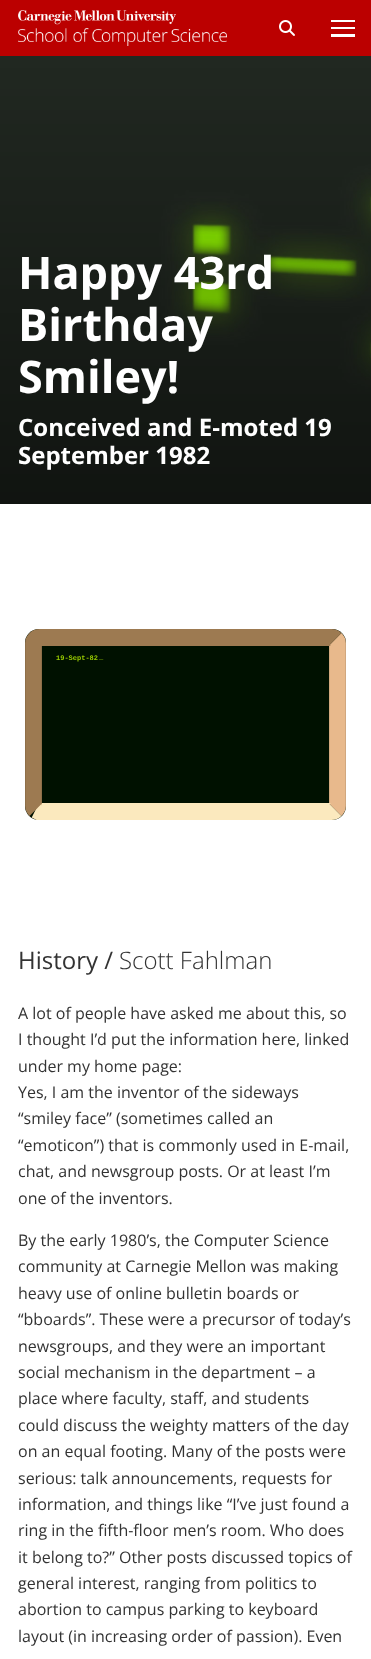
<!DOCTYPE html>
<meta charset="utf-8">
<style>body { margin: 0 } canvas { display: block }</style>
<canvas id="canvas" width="371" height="1659"></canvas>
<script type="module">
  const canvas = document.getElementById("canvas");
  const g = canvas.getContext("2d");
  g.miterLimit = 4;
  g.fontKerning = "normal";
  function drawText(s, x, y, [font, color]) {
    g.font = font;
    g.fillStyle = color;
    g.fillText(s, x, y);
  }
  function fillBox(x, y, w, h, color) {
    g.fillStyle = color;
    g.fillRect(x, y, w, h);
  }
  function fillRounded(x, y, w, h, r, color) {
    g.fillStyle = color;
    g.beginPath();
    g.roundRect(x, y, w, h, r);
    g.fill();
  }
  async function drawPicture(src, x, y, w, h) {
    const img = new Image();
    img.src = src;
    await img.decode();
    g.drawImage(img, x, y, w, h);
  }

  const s1 = ["bold 45px Open Sans", "#FFFFFF"];
  const s2 = ["bold 24px Open Sans", "#FFFFFF"];
  const s3 = ["bold 7px Liberation Mono", "#99CC00"];
  const s4 = ["24px Open Sans", "#333333"];
  const s5 = ["300 24px Open Sans", "#333333"];
  const s6 = ["16px Open Sans", "#333333"];

  fillBox(0, 0, 371, 1659, "#FFFFFF");
  fillBox(0, 0, 371, 56, "#BB0000");
  await drawPicture("pic1.png", 18, 10, 209, 36);
  await drawPicture("pic2.png", 279, 20, 16, 16);
  fillBox(331, 20, 24, 2, "#FFFFFF");
  fillBox(331, 27, 24, 2, "#FFFFFF");
  fillBox(331, 34, 24, 3, "#FFFFFF");
  await drawPicture("pic3.png", 0, 56, 371, 448);
  drawText("Happy 43rd", 18, 289, s1);
  drawText("Birthday", 18, 341, s1);
  drawText("Smiley!", 18, 393, s1);
  drawText("Conceived and E-moted 19", 18, 436, s2);
  drawText("September 1982", 18, 464, s2);
  fillRounded(25, 629, 321, 191, 14, "#001100");
  g.beginPath();
  g.moveTo(335.5, 639);
  g.bezierCurveTo(336.5, 640, 337.5, 641.5, 337.5, 643);
  g.lineTo(337.5, 806);
  g.bezierCurveTo(337.5, 807.5, 336.5, 809, 335.5, 810);
  g.strokeStyle = "#E8B98C";
  g.lineWidth = 16.8;
  g.stroke();
  g.beginPath();
  g.moveTo(335.5, 810);
  g.bezierCurveTo(334.5, 811, 333, 811.5, 331.5, 811.5);
  g.lineTo(38.5, 811.5);
  g.lineTo(35.5, 810);
  g.strokeStyle = "#FBE9BE";
  g.stroke();
  g.beginPath();
  g.moveTo(35.5, 810);
  g.bezierCurveTo(34.5, 809, 33.5, 807.5, 33.5, 806);
  g.lineTo(33.5, 643);
  g.bezierCurveTo(33.5, 641.5, 34.5, 640, 35.5, 639);
  g.bezierCurveTo(36.5, 638, 38, 637.5, 39.5, 637.5);
  g.lineTo(331.5, 637.5);
  g.bezierCurveTo(333, 637.5, 334.5, 638, 335.5, 639);
  g.strokeStyle = "#9D7A51";
  g.stroke();
  drawText("19-Sept-82", 56, 660, s3);
  drawText("_", 99, 659, s3);
  drawText("History /", 18, 969, s4);
  drawText("Scott Fahlman", 119, 969, s5);
  drawText("A lot of people have asked me about this, so", 18, 1019, s6);
  drawText("I thought I’d put the information here, linked", 18, 1045, s6);
  drawText("under my home page:", 18, 1072, s6);
  drawText("Yes, I am the inventor of the sideways", 18, 1098, s6);
  drawText("“smiley face” (sometimes called an", 18, 1124, s6);
  drawText("“emoticon”) that is commonly used in E-mail,", 18, 1151, s6);
  drawText("chat, and newsgroup posts. Or at least I’m", 18, 1177, s6);
  drawText("one of the inventors.", 18, 1204, s6);
  drawText("By the early 1980’s, the Computer Science", 18, 1246, s6);
  drawText("community at Carnegie Mellon was making", 18, 1272, s6);
  drawText("heavy use of online bulletin boards or", 18, 1299, s6);
  drawText("“bboards”. These were a precursor of today’s", 18, 1325, s6);
  drawText("newsgroups, and they were an important", 18, 1352, s6);
  drawText("social mechanism in the department – a", 18, 1378, s6);
  drawText("place where faculty, staff, and students", 18, 1404, s6);
  drawText("could discuss the weighty matters of the day", 18, 1431, s6);
  drawText("on an equal footing. Many of the posts were", 18, 1457, s6);
  drawText("serious: talk announcements, requests for", 18, 1484, s6);
  drawText("information, and things like “I’ve just found a", 18, 1510, s6);
  drawText("ring in the fifth-floor men’s room. Who does", 18, 1536, s6);
  drawText("it belong to?” Other posts discussed topics of", 18, 1563, s6);
  drawText("general interest, ranging from politics to", 18, 1589, s6);
  drawText("abortion to campus parking to keyboard", 18, 1615, s6);
  drawText("layout (in increasing order of passion). Even", 18, 1642, s6);
</script>
